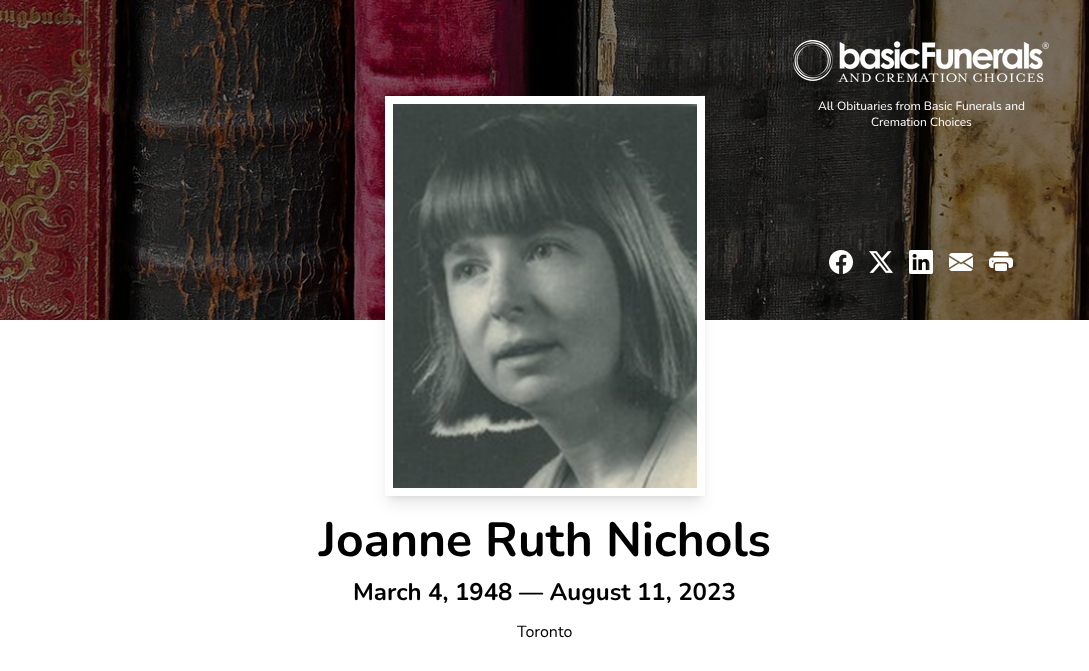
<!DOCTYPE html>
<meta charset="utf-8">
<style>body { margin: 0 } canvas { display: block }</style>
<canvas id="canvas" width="1089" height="671"></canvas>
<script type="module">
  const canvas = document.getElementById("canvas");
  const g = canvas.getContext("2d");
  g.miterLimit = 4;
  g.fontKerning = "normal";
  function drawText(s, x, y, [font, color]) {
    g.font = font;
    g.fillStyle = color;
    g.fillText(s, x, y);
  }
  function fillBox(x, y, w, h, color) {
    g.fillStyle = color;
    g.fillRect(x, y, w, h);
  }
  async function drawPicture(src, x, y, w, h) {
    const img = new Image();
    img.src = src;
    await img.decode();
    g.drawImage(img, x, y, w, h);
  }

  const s1 = ["12px Nunito", "#FFFFFF"];
  const s2 = ["bold 48px Nunito", "#000000"];
  const s3 = ["bold 24px Nunito", "#000000"];
  const s4 = ["16px Nunito", "#000000"];

  fillBox(0, 0, 1089, 671, "#FFFFFF");
  await drawPicture("pic1.png", 0, 0, 1089, 320);
  await drawPicture("pic2.png", 793, 40, 256, 42);
  drawText("All Obituaries from Basic Funerals and", 818, 110, s1);
  drawText("Cremation Choices", 871, 126, s1);
  await drawPicture("pic3.png", 829, 250, 24, 24);
  await drawPicture("pic4.png", 869, 251, 24, 22);
  await drawPicture("pic5.png", 909, 250, 24, 24);
  await drawPicture("pic6.png", 949, 253, 24, 18);
  await drawPicture("pic7.png", 989, 251, 24, 20);
  g.fillStyle = "rgba(0, 0, 0, 0.1)";
  g.filter = "blur(3px)";
  g.beginPath();
  g.rect(389, 104, 312, 392);
  g.fill();
  g.filter = "none";
  g.filter = "blur(7.5px)";
  g.beginPath();
  g.rect(388, 109, 314, 394);
  g.fill();
  g.filter = "none";
  g.strokeStyle = "#FFFFFF";
  g.lineWidth = 8;
  g.strokeRect(389, 100, 312, 392);
  await drawPicture("pic8.png", 393, 104, 304, 384);
  drawText("Joanne Ruth Nichols", 319, 556, s2);
  drawText("March 4, 1948 — August 11, 2023", 353, 600, s3);
  drawText("Toronto", 517, 637, s4);
</script>
